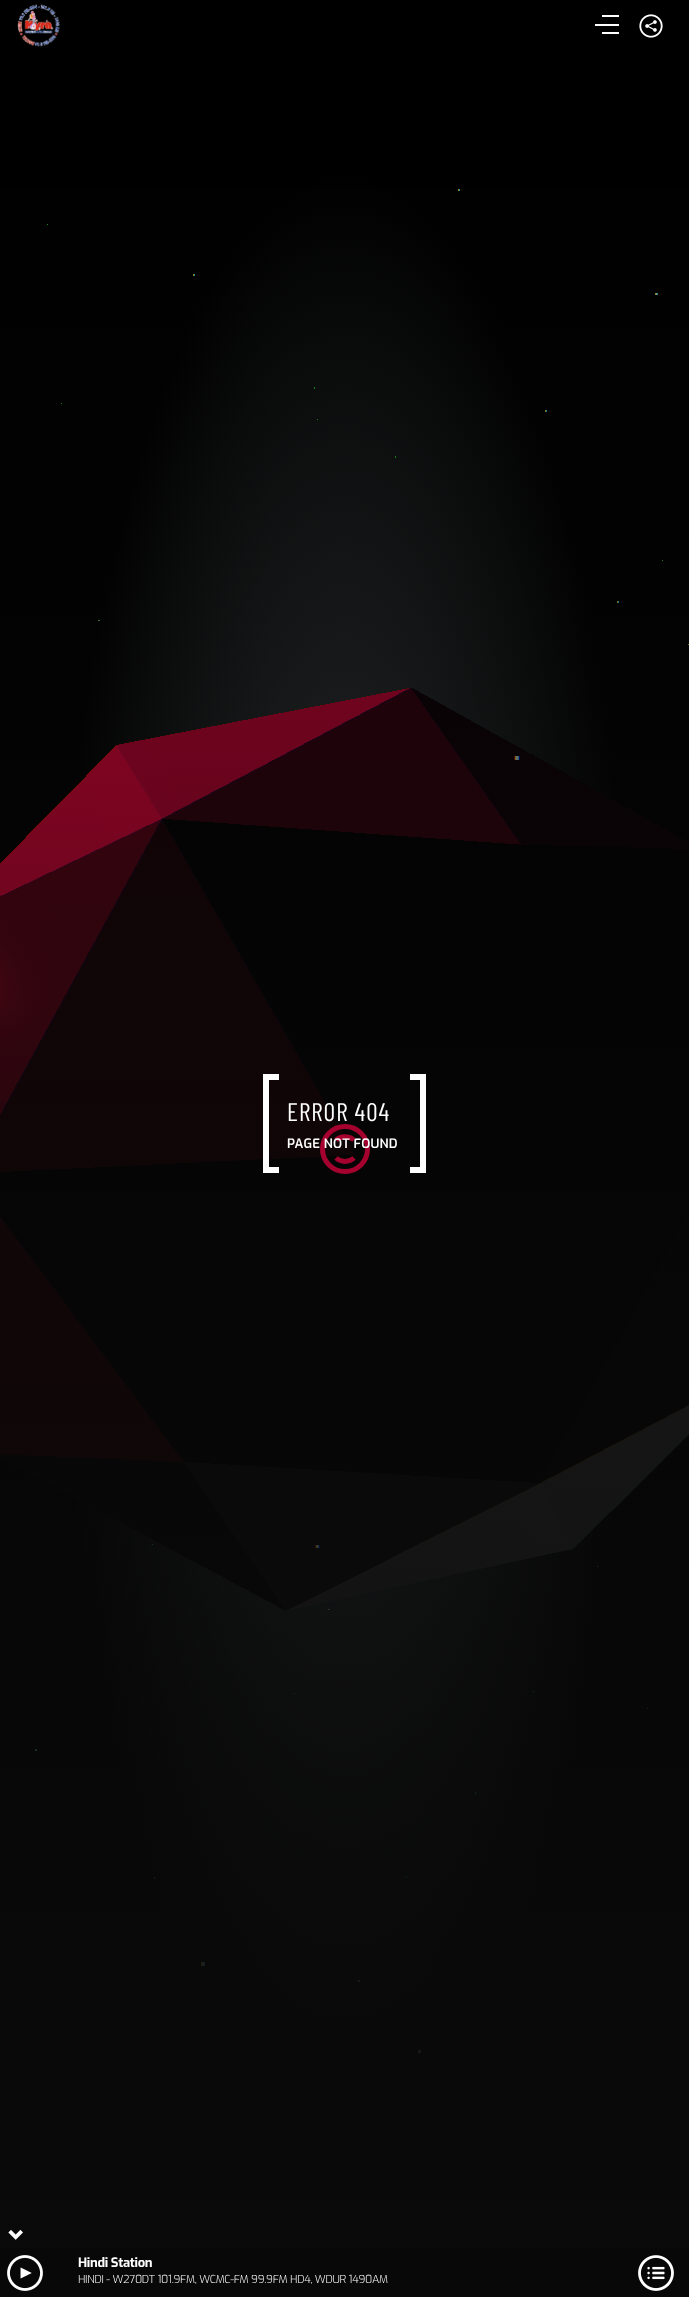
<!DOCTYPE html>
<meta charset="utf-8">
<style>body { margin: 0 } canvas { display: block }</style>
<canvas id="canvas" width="689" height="2297"></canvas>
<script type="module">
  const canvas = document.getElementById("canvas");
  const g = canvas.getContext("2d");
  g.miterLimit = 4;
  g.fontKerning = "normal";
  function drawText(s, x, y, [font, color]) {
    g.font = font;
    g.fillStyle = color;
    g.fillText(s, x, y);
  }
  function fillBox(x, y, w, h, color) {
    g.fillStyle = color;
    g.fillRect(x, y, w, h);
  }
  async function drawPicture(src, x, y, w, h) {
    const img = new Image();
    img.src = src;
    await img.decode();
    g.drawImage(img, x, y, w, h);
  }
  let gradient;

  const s1 = ["25.5px Barlow Condensed", "#FFFFFF"];
  const s2 = ["600 13px Exo", "#FFFFFF"];
  const s3 = ["bold 13px Exo", "#FFFFFF"];
  const s4 = ["300 11px Exo", "#FFFFFF"];

  fillBox(0, 0, 689, 2297, "#FFFFFF");
  gradient = g.createRadialGradient(345, 344.56, 0, 345, 344.56, 487);
  gradient.addColorStop(0, "#383D3F");
  gradient.addColorStop(0.6, "#000000");
  g.fillStyle = gradient;
  g.beginPath();
  g.rect(0, 0, 689, 2248);
  g.save();
  g.clip();
  g.scale(1, 1624 / 487);
  g.fillRect(0, 0, 689, 689);
  g.restore();
  await drawPicture("pic1.png", 0, 189, 689, 1864);
  await drawPicture("pic2.png", 17, 4, 43, 43);
  fillBox(602, 15, 17, 2, "#FFFFFF");
  fillBox(595, 24, 24, 2, "#FFFFFF");
  fillBox(602, 32, 17, 2, "#FFFFFF");
  await drawPicture("pic3.png", 639, 14, 24, 24);
  gradient = g.createLinearGradient(344, 0, 345, 2297);
  gradient.addColorStop(0, "rgba(10, 10, 10, 0)");
  gradient.addColorStop(1, "#0A0A0A");
  g.fillStyle = gradient;
  g.fillRect(0, 189, 689, 2059);
  fillBox(263, 1074, 16, 6, "#FFFFFF");
  fillBox(263, 1167, 16, 6, "#FFFFFF");
  fillBox(263, 1074, 6, 99, "#FFFFFF");
  g.letterSpacing = "1px";
  drawText("ERROR 404", 287, 1121, s1);
  fillBox(410, 1167, 16, 6, "#FFFFFF");
  fillBox(410, 1074, 16, 6, "#FFFFFF");
  fillBox(420, 1074, 6, 99, "#FFFFFF");
  g.beginPath();
  g.arc(345, 1149, 22.5, 0, Math.PI * 2);
  g.strokeStyle = "rgba(213, 0, 60, 0.77)";
  g.lineWidth = 5;
  g.stroke();
  g.beginPath();
  g.moveTo(336, 1140);
  g.bezierCurveTo(341, 1135.5, 349, 1135.5, 354, 1140);
  g.stroke();
  g.letterSpacing = "0.2px";
  drawText("PAGE NOT FOUND", 287, 1148, s2);
  fillBox(0, 2248, 689, 49, "#080808");
  await drawPicture("pic4.png", 8, 2229, 15, 11);
  await drawPicture("pic5.png", 7, 2255, 36, 36);
  g.letterSpacing = "-0.3px";
  drawText("Hindi Station", 78, 2267, s3);
  drawText("HINDI - W270DT 101.9FM, WCMC-FM 99.9FM HD4, WDUR 1490AM", 78, 2283, s4);
  await drawPicture("pic6.png", 638, 2255, 36, 36);
  g.beginPath();
  g.moveTo(354, 1158);
  g.bezierCurveTo(349, 1162.5, 341, 1162.5, 336, 1158);
  g.strokeStyle = "#A5012F";
  g.stroke();
</script>
